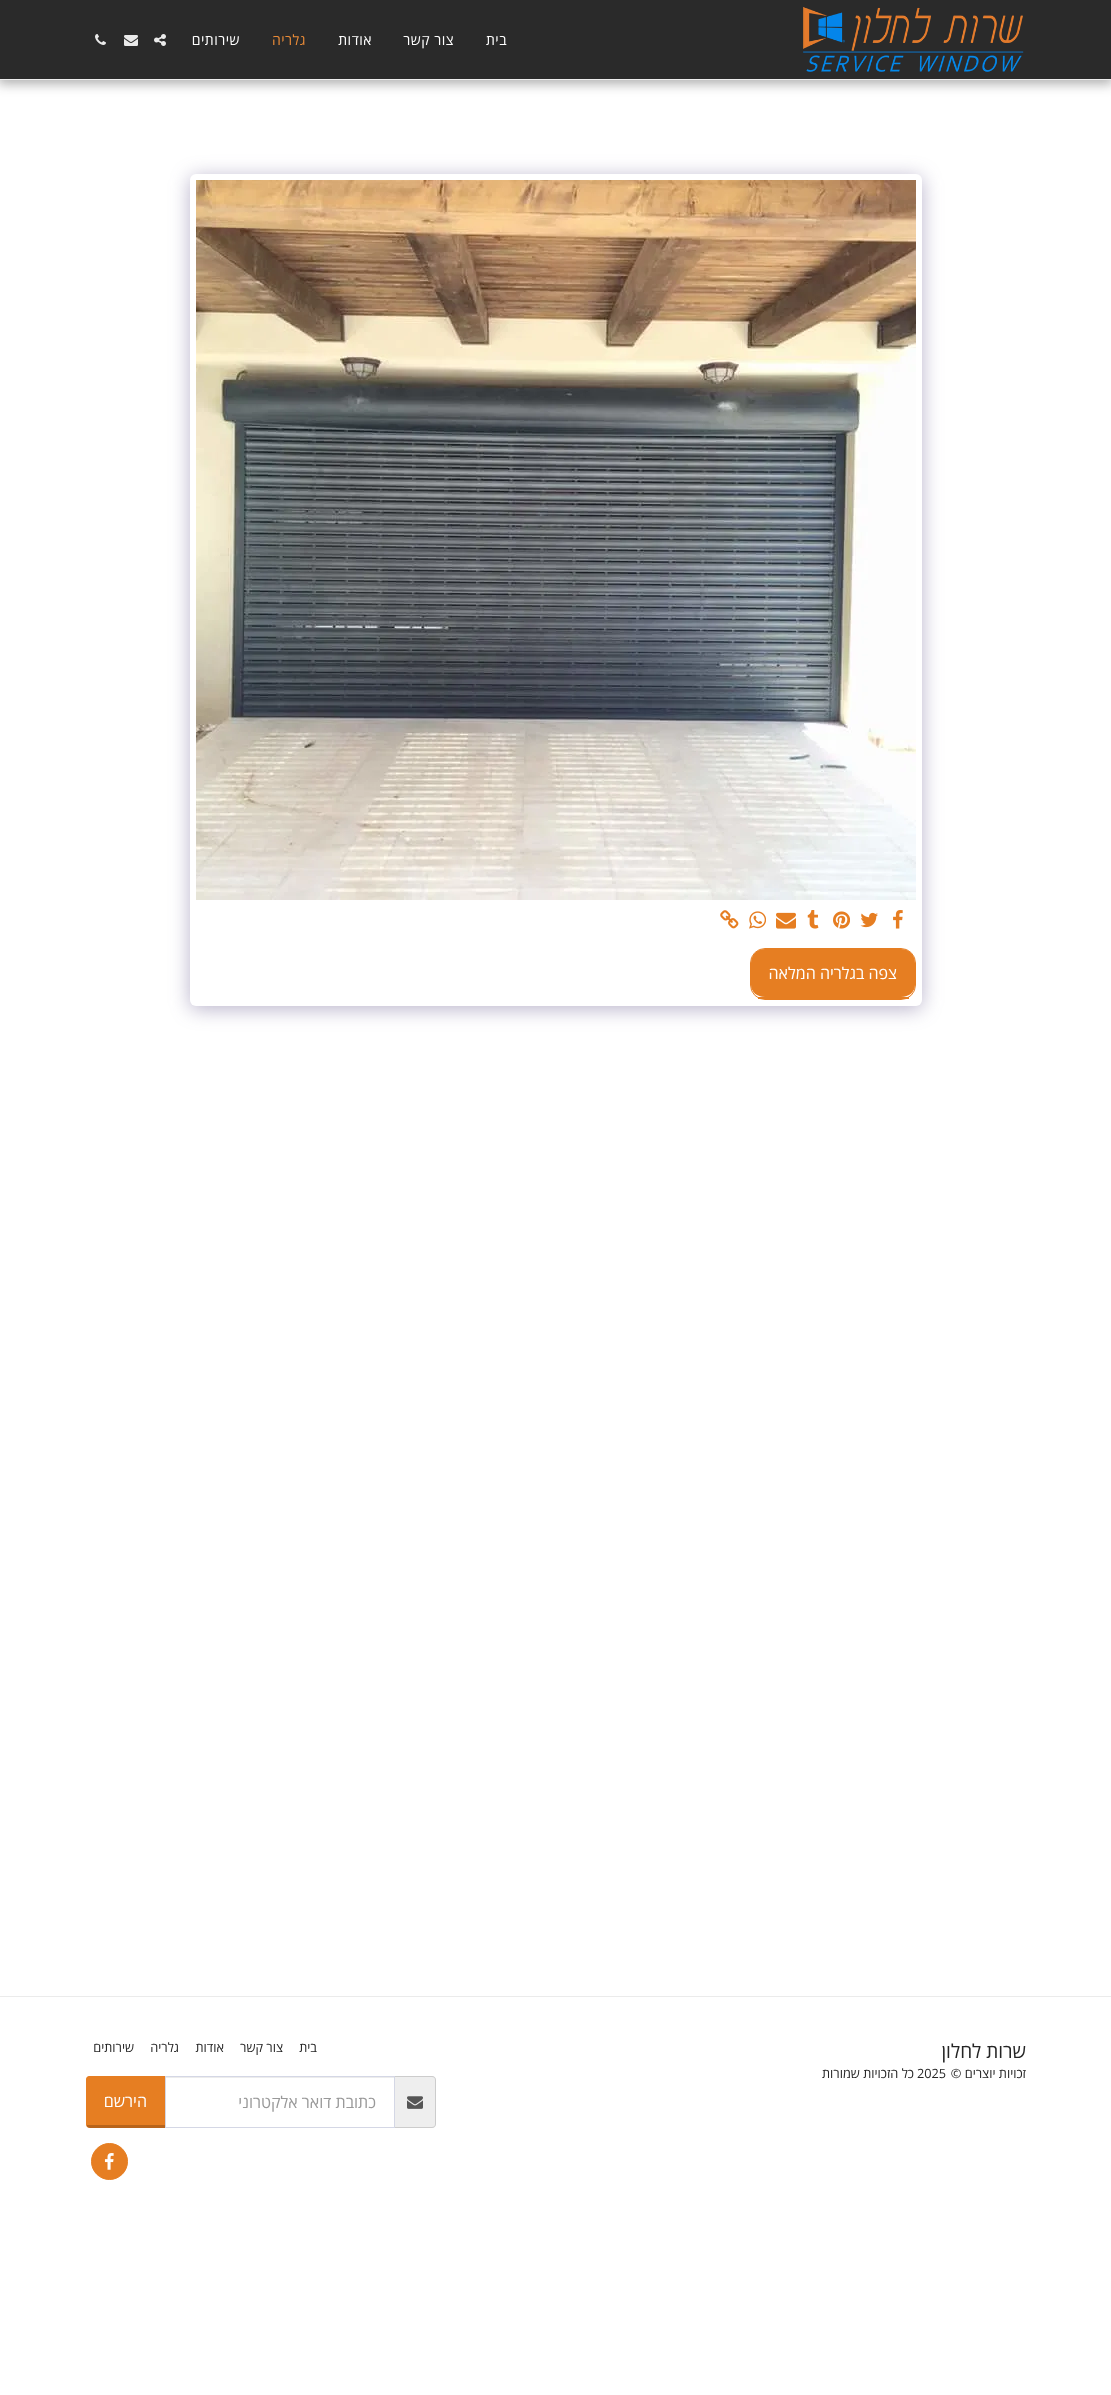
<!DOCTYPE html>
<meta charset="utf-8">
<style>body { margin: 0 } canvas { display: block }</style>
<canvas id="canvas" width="1111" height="2395"></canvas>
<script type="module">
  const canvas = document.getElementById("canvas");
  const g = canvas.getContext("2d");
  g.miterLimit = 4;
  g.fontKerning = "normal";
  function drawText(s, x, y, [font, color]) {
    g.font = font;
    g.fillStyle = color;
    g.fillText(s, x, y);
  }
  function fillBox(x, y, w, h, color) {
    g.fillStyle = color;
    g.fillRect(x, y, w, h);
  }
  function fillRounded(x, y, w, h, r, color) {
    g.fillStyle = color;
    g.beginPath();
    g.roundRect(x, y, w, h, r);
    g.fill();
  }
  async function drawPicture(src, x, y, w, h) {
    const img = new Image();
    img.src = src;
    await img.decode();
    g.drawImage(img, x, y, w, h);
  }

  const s1 = ["14px Open Sans", "#FFFFFF"];
  const s2 = ["14px Open Sans", "#E98B38"];
  const s3 = ["16px Open Sans", "#FFFFFF"];
  const s4 = ["19px Open Sans", "#252525"];
  const s5 = ["12.75px Open Sans", "#252525"];
  const s6 = ["16px Open Sans", "#999999"];

  fillBox(0, 0, 1111, 2395, "#FFFFFF");
  g.fillStyle = "rgba(26, 26, 26, 0.35)";
  g.filter = "blur(6px)";
  g.beginPath();
  g.rect(-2, 0, 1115, 84);
  g.fill();
  g.filter = "none";
  fillBox(0, 0, 1111, 79, "#2A2A2A");
  fillBox(0, 79, 1111, 1, "#EDEDED");
  await drawPicture("pic1.png", 803, 7, 221, 65);
  g.letterSpacing = "0.5px";
  g.direction = "rtl";
  drawText("בית", 507, 45, s1);
  drawText("צור קשר", 454, 45, s1);
  drawText("אודות", 372, 45, s1);
  drawText("גלריה", 306, 45, s2);
  drawText("שירותים", 240, 45, s1);
  await drawPicture("pic2.png", 154, 34, 12, 12);
  await drawPicture("pic3.png", 124, 35, 14, 11);
  await drawPicture("pic4.png", 95, 34, 11, 11);
  g.fillStyle = "rgba(77, 63, 122, 0.4)";
  g.filter = "blur(10px)";
  g.beginPath();
  g.roundRect(190, 177, 732, 832, 6);
  g.fill();
  g.filter = "none";
  fillRounded(190, 174, 732, 832, 6, "#FFFFFF");
  await drawPicture("pic5.png", 196, 180, 720, 720);
  await drawPicture("pic6.png", 893, 910, 10, 19);
  await drawPicture("pic7.png", 860, 912, 18, 16);
  await drawPicture("pic8.png", 833, 911, 17, 18);
  await drawPicture("pic9.png", 807, 910, 12, 19);
  await drawPicture("pic10.png", 776, 912, 20, 17);
  await drawPicture("pic11.png", 749, 911, 17, 18);
  await drawPicture("pic12.png", 720, 910, 19, 19);
  g.fillStyle = "#E67E22";
  g.beginPath();
  g.moveTo(765, 949);
  g.lineTo(901, 949);
  g.bezierCurveTo(909, 949, 915, 955, 915, 963);
  g.lineTo(915, 985);
  g.bezierCurveTo(915, 992, 909, 997, 901, 997);
  g.lineTo(765, 997);
  g.bezierCurveTo(757, 997, 751, 992, 751, 985);
  g.lineTo(751, 963);
  g.bezierCurveTo(751, 955, 757, 949, 765, 949);
  g.closePath();
  g.fill();
  g.beginPath();
  g.roundRect(750.5, 948.5, 165, 51, 14.5);
  g.strokeStyle = "#E67E22";
  g.stroke();
  fillBox(758, 997, 151, 2, "#E67E22");
  g.letterSpacing = "0px";
  drawText("צפה בגלריה המלאה", 897, 979, s3);
  fillBox(0, 1996, 1111, 1, "#EBEBEB");
  drawText("שרות לחלון", 1026, 2058, s4);
  drawText("זכויות יוצרים ©", 1026, 2078, s5);
  g.direction = "ltr";
  drawText("2025", 917, 2078, s5);
  g.direction = "rtl";
  drawText("כל הזכויות שמורות", 914, 2078, s5);
  drawText("בית", 317, 2052, s5);
  drawText("צור קשר", 283, 2052, s5);
  drawText("אודות", 224, 2052, s5);
  drawText("גלריה", 179, 2052, s5);
  drawText("שירותים", 134, 2052, s5);
  g.fillStyle = "#EEEEEE";
  g.beginPath();
  g.roundRect(395, 2076, 41, 52, [0, 4, 4, 0]);
  g.fill();
  g.fillStyle = "#CCCCCC";
  g.beginPath();
  g.moveTo(395, 2076);
  g.lineTo(432, 2076);
  g.bezierCurveTo(434, 2076, 436, 2078, 436, 2080);
  g.lineTo(436, 2124);
  g.bezierCurveTo(436, 2126, 434, 2128, 432, 2128);
  g.lineTo(395, 2128);
  g.closePath();
  g.moveTo(395, 2077);
  g.lineTo(432, 2077);
  g.bezierCurveTo(434, 2077, 435, 2078, 435, 2080);
  g.lineTo(435, 2124);
  g.bezierCurveTo(435, 2126, 434, 2127, 432, 2127);
  g.lineTo(395, 2127);
  g.closePath();
  g.fill("evenodd");
  await drawPicture("pic13.png", 407, 2096, 16, 13);
  fillBox(166, 2077, 228, 1, "#ECECEC");
  g.fillStyle = "#E67E22";
  g.beginPath();
  g.roundRect(86, 2076, 80, 52, [4, 0, 0, 4]);
  g.fill();
  g.beginPath();
  g.moveTo(90, 2076);
  g.lineTo(87, 2077);
  g.lineTo(88, 2078);
  g.bezierCurveTo(89, 2076, 157, 2077, 165, 2077);
  g.lineTo(166, 2076);
  g.closePath();
  g.fill();
  g.fillStyle = "rgba(0, 0, 0, 0.2)";
  g.beginPath();
  g.moveTo(166, 2128);
  g.lineTo(165, 2125);
  g.lineTo(89, 2125);
  g.lineTo(87, 2125);
  g.lineTo(87, 2126);
  g.bezierCurveTo(87, 2127, 89, 2128, 90, 2128);
  g.closePath();
  g.fill();
  g.strokeStyle = "#D4D7E5";
  g.strokeRect(165.5, 2076.5, 229, 51);
  drawText("כתובת דואר אלקטרוני", 376, 2108, s6);
  g.fillStyle = "#E67E22";
  g.beginPath();
  g.moveTo(86, 2080);
  g.lineTo(86, 2124);
  g.lineTo(87, 2126);
  g.lineTo(87, 2125);
  g.lineTo(87, 2080);
  g.lineTo(88, 2078);
  g.lineTo(87, 2077);
  g.closePath();
  g.fill();
  drawText("הירשם", 147, 2107, s3);
  g.fillStyle = "#E67E22";
  g.beginPath();
  g.arc(109.5, 2161.5, 18, 0, Math.PI * 2);
  g.fill();
  g.strokeStyle = "#E67E22";
  g.stroke();
  await drawPicture("pic14.png", 104, 2153, 10, 17);
</script>
